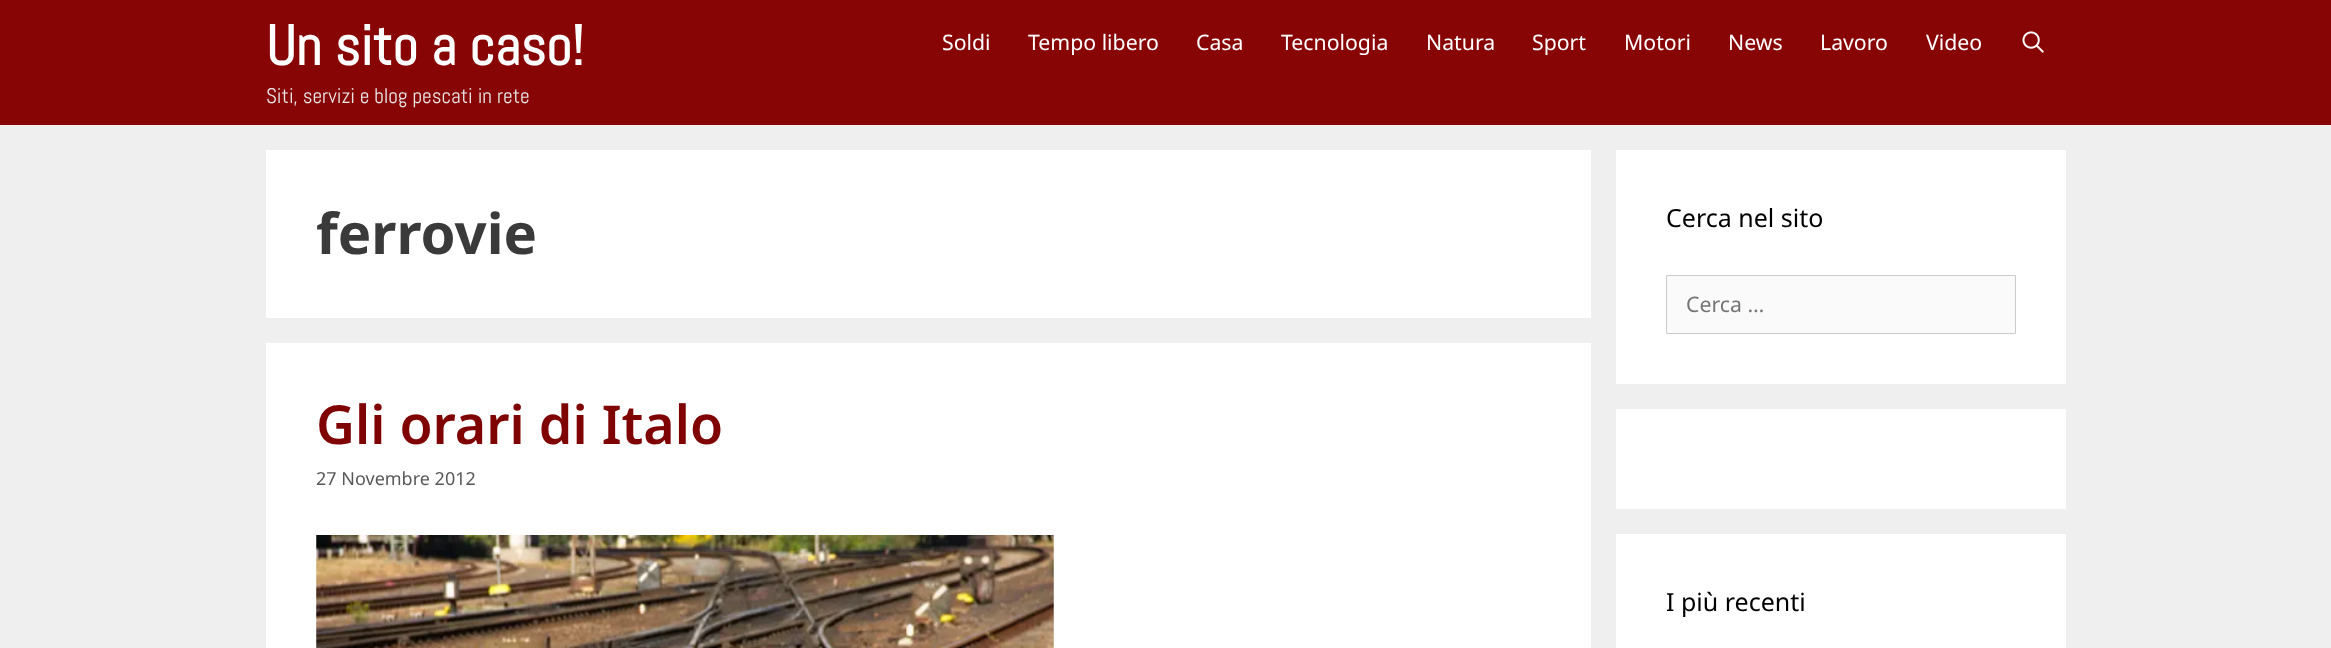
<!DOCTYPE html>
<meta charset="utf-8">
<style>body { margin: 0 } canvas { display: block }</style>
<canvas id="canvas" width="2331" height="648"></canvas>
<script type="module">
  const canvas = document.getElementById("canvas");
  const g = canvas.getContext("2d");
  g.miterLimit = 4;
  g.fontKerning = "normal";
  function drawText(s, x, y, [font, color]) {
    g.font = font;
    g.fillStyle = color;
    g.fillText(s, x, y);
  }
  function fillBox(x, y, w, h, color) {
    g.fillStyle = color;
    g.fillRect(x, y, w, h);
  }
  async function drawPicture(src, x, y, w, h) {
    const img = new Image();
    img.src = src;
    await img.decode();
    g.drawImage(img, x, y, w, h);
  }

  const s1 = ["bold 56.25px Abel", "#FFFFFF"];
  const s2 = ["21.25px Abel", "#E8E8E8"];
  const s3 = ["21.25px Noto Sans", "#FFFFFF"];
  const s4 = ["bold 56.25px Noto Sans", "#3A3A3A"];
  const s5 = ["600 53.75px Noto Sans", "#7F0303"];
  const s6 = ["18px Noto Sans", "#595959"];
  const s7 = ["25px Noto Sans", "#000000"];
  const s8 = ["21.25px Noto Sans", "#757575"];

  fillBox(0, 0, 2331, 648, "#EFEFEF");
  fillBox(0, 0, 2331, 125, "#880505");
  drawText("Un sito a caso!", 266, 65, s1);
  drawText("Siti, servizi e blog pescati in rete", 266, 103, s2);
  drawText("Soldi", 942, 50, s3);
  drawText("Tempo libero", 1028, 50, s3);
  drawText("Casa", 1196, 50, s3);
  drawText("Tecnologia", 1281, 50, s3);
  drawText("Natura", 1426, 50, s3);
  drawText("Sport", 1532, 50, s3);
  drawText("Motori", 1624, 50, s3);
  drawText("News", 1728, 50, s3);
  drawText("Lavoro", 1820, 50, s3);
  drawText("Video", 1926, 50, s3);
  await drawPicture("pic1.png", 2022, 31, 22, 22);
  fillBox(266, 150, 1325, 168, "#FFFFFF");
  drawText("ferrovie", 316, 254, s4);
  fillBox(266, 343, 1325, 305, "#FFFFFF");
  drawText("Gli orari di Italo", 316, 444, s5);
  drawText("27 Novembre 2012", 316, 485, s6);
  await drawPicture("pic2.png", 316, 535, 738, 113);
  fillBox(1616, 150, 450, 234, "#FFFFFF");
  drawText("Cerca nel sito", 1666, 227, s7);
  g.fillStyle = "#FAFAFA";
  g.beginPath();
  g.rect(1666.5, 275.5, 349, 58);
  g.fill();
  g.strokeStyle = "#CCCCCC";
  g.stroke();
  drawText("Cerca …", 1686, 312, s8);
  fillBox(1616, 409, 450, 100, "#FFFFFF");
  fillBox(1616, 534, 450, 114, "#FFFFFF");
  drawText("I più recenti", 1666, 611, s7);
</script>
